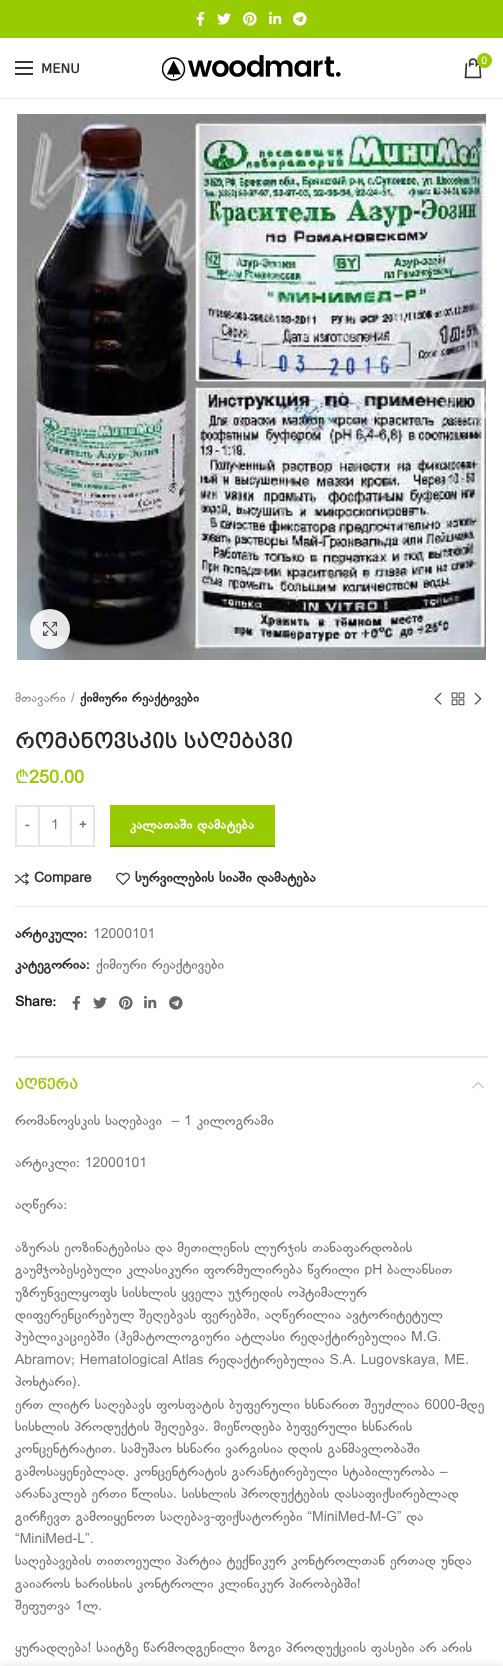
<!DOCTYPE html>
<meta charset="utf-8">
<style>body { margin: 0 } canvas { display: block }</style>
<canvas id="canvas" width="503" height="1666"></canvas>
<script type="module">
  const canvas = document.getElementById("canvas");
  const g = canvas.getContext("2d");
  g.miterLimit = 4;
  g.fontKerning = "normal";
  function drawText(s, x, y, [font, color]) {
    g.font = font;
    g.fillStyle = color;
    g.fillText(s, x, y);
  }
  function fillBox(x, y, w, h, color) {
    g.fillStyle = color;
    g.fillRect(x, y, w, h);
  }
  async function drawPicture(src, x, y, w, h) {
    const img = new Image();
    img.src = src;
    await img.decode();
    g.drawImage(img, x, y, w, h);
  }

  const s1 = ["10px 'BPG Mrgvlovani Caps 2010'", "#FFFFFF"];
  const s2 = ["bold 13px 'BPG Mrgvlovani Caps 2010'", "#333333"];
  const s3 = ["13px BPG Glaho", "#8E8E8E"];
  const s4 = ["bold 13px BPG Glaho", "#333333"];
  const s5 = ["bold 20px 'BPG Mrgvlovani Caps 2010'", "#2D2A2A"];
  const s6 = ["18px Noto Sans", "#98CB02"];
  const s7 = ["bold 18px BPG Glaho", "#98CB02"];
  const s8 = ["bold 13px BPG Glaho", "#777777"];
  const s9 = ["14px BPG Glaho", "#777777"];
  const s10 = ["bold 13px BPG Glaho", "#FFFFFF"];
  const s11 = ["bold 14px BPG Glaho", "#333333"];
  const s12 = ["bold 14px BPG Glaho", "#1B1919"];
  const s13 = ["bold 14px 'BPG Mrgvlovani Caps 2010'", "#98CB02"];

  fillBox(0, 0, 503, 1666, "#FFFFFF");
  fillBox(0, 0, 503, 38, "#98CB02");
  await drawPicture("pic1.png", 196, 11, 9, 15);
  await drawPicture("pic2.png", 217, 13, 14, 12);
  await drawPicture("pic3.png", 243, 12, 14, 14);
  await drawPicture("pic4.png", 269, 11, 13, 14);
  await drawPicture("pic5.png", 293, 12, 14, 14);
  fillBox(0, 98, 503, 1, "#E8E8E8");
  await drawPicture("pic6.png", 162, 55, 179, 26);
  await drawPicture("pic7.png", 464, 58, 18, 21);
  g.fillStyle = "#98CB02";
  g.beginPath();
  g.arc(484.5, 60.5, 7.5, 0, Math.PI * 2);
  g.fill();
  drawText("0", 481, 64, s1);
  fillBox(15, 67, 18, 2, "#333333");
  fillBox(15, 61, 18, 2, "#333333");
  fillBox(15, 73, 18, 2, "#333333");
  drawText("MENU", 41, 73, s2);
  await drawPicture("pic8.png", 17, 114, 469, 546);
  g.fillStyle = "rgba(255, 255, 255, 0.9)";
  g.beginPath();
  g.arc(50, 629, 20, 0, Math.PI * 2);
  g.fill();
  await drawPicture("pic9.png", 43, 621, 14, 15);
  drawText("მთავარი", 15, 702, s3);
  drawText("/", 71, 702, s3);
  drawText("ქიმიური რეაქტივები", 80, 702, s4);
  await drawPicture("pic10.png", 434, 692, 8, 13);
  await drawPicture("pic11.png", 451, 692, 14, 14);
  await drawPicture("pic12.png", 474, 692, 8, 13);
  drawText("რომანოვსკის საღებავი", 15, 748, s5);
  drawText("₾", 15, 783, s6);
  drawText("250.00", 29, 783, s7);
  g.strokeStyle = "#E6E6E6";
  g.lineWidth = 2;
  g.strokeRect(16, 806, 23, 40);
  g.letterSpacing = "0.25px";
  drawText("-", 25, 829, s8);
  fillBox(40, 805, 30, 2, "#E6E6E6");
  fillBox(40, 845, 30, 2, "#E6E6E6");
  g.letterSpacing = "0px";
  drawText("1", 51, 829, s9);
  g.strokeRect(71, 806, 23, 40);
  g.letterSpacing = "0.25px";
  drawText("+", 79, 829, s8);
  fillBox(110, 805, 165, 40, "#98CB02");
  fillBox(110, 845, 165, 2, "#81AD02");
  drawText("კალათაში დამატება", 130, 829, s10);
  await drawPicture("pic13.png", 15, 872, 14, 14);
  g.letterSpacing = "0px";
  drawText("Compare", 34, 882, s11);
  await drawPicture("pic14.png", 116, 872, 14, 13);
  drawText("სურვილების სიაში დამატება", 135, 882, s11);
  fillBox(15, 906, 473, 1, "#E6E6E6");
  drawText("არტიკული:", 15, 938, s11);
  drawText("12000101", 93, 938, s9);
  drawText("კატეგორია:", 15, 969, s11);
  drawText("ქიმიური რეაქტივები", 96, 969, s9);
  drawText("Share:", 15, 1006, s12);
  await drawPicture("pic15.png", 72, 995, 9, 15);
  await drawPicture("pic16.png", 93, 997, 14, 12);
  await drawPicture("pic17.png", 119, 996, 14, 14);
  await drawPicture("pic18.png", 144, 995, 13, 14);
  await drawPicture("pic19.png", 169, 996, 14, 14);
  fillBox(15, 1056, 473, 2, "#E8E8E8");
  drawText("აღწერა", 15, 1089, s13);
  await drawPicture("pic20.png", 472, 1082, 12, 7);
  drawText("რომანოვსკის საღებავი  – 1 კილოგრამი", 15, 1125, s9);
  drawText("არტიკლი: 12000101", 15, 1167, s9);
  drawText("აღწერა:", 15, 1209, s9);
  drawText("აზურას ეოზინატებისა და მეთილენის ლურჯის თანაფარდობის", 15, 1252, s9);
  drawText("გაუმჯობესებული კლასიკური ფორმულირება წვრილი pH ბალანსით", 15, 1274, s9);
  drawText("უზრუნველყოფს სისხლის ყველა უჯრედის ოპტიმალურ", 15, 1297, s9);
  drawText("დიფერენცირებულ შეღებვას ფერებში, აღწერილია ავტორიტეტულ", 15, 1319, s9);
  drawText("პუბლიკაციებში (ჰემატოლოგიური ატლასი რედაქტირებულია M.G.", 15, 1341, s9);
  drawText("Abramov; Hematological Atlas რედაქტირებულია S.A. Lugovskaya, ME.", 15, 1364, s9);
  drawText("პოხტარი).", 15, 1386, s9);
  drawText("ერთ ლიტრ საღებავს ფოსფატის ბუფერული ხსნარით შეუძლია 6000-მდე", 15, 1409, s9);
  drawText("სისხლის პროდუქტის შეღებვა. მიეწოდება ბუფერული ხსნარის", 15, 1431, s9);
  drawText("კონცენტრატით. სამუშაო ხსნარი ვარგისია დღის განმავლობაში", 15, 1453, s9);
  drawText("გამოსაყენებლად. კონცენტრატის გარანტირებული სტაბილურობა –", 15, 1476, s9);
  drawText("არანაკლებ ერთი წლისა. სისხლის პროდუქტების დასაფიქსირებლად", 15, 1498, s9);
  drawText("გირჩევთ გამოიყენოთ საღებავ-ფიქსატორები “MiniMed-M-G” და", 15, 1521, s9);
  drawText("“MiniMed-L”.", 15, 1543, s9);
  drawText("საღებავების თითოეული პარტია ტექნიკურ კონტროლთან ერთად უნდა", 15, 1565, s9);
  drawText("გაიაროს ხარისხის კონტროლი კლინიკურ პირობებში!", 15, 1588, s9);
  drawText("შეფუთვა 1ლ.", 15, 1610, s9);
  drawText("ყურადღება! საიტზე წარმოდგენილი ზოგი პროდუქციის ფასები არ არის", 15, 1652, s9);
  g.fillStyle = "rgba(0, 0, 0, 0.14)";
  g.filter = "blur(4.5px)";
  g.beginPath();
  g.rect(0, 1666, 503, 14);
  g.fill();
  g.filter = "none";
</script>
